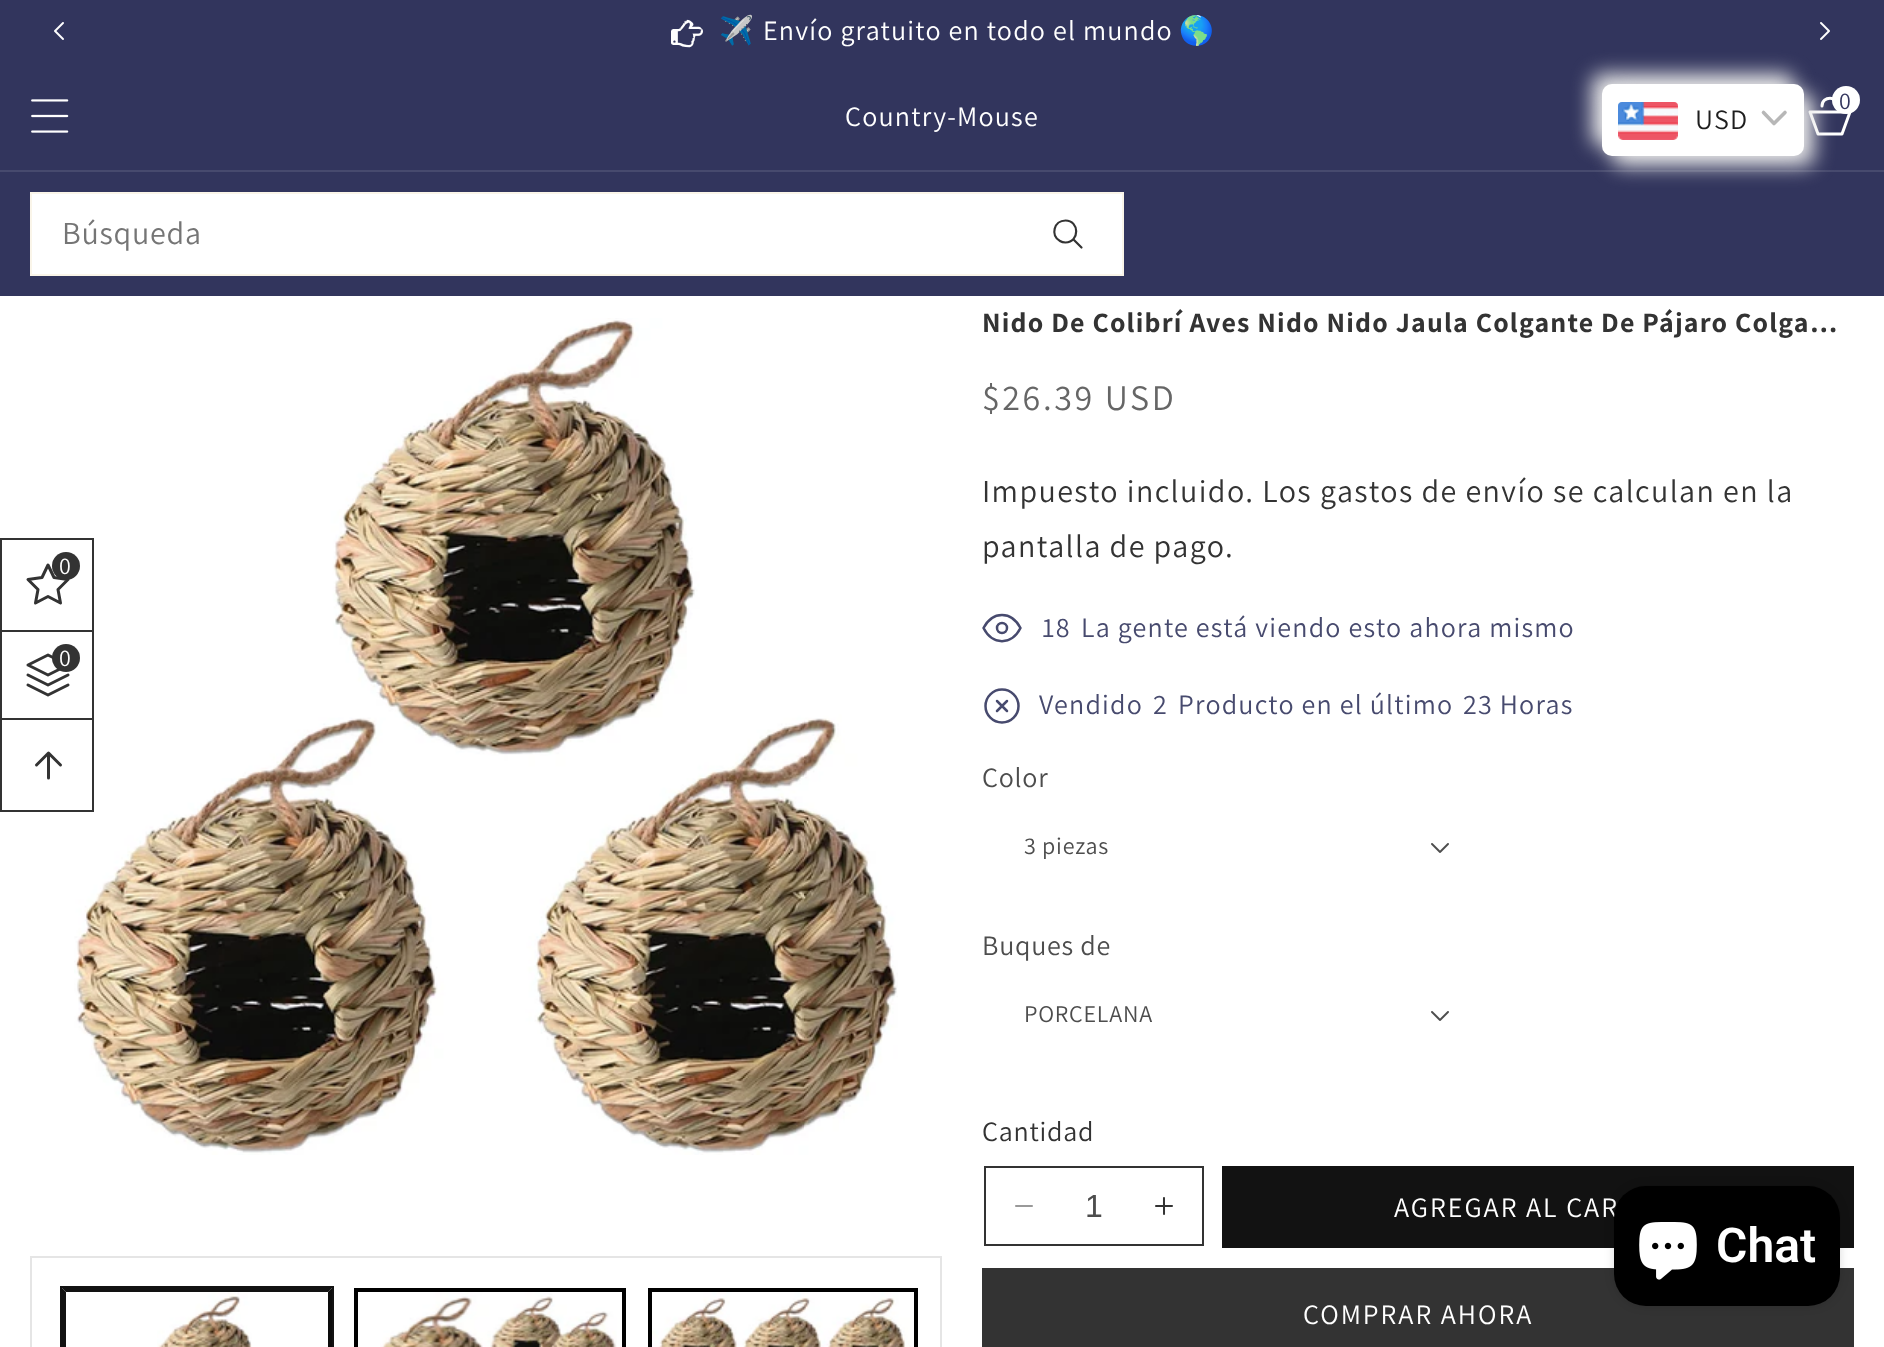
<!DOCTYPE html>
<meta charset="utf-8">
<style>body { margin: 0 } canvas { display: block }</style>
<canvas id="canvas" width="1884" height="1347"></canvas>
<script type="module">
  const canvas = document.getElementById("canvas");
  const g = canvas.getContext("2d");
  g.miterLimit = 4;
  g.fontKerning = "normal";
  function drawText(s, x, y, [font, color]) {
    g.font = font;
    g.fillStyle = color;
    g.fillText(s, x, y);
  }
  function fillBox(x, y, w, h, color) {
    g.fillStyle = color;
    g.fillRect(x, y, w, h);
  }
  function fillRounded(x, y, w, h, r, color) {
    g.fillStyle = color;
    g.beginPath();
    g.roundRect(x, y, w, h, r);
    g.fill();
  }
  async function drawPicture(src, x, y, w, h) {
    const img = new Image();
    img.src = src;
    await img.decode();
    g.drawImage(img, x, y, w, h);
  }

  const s1 = ["28px Noto Color Emoji", "#FFFFFF"];
  const s2 = ["28px Assistant", "#FFFFFF"];
  const s3 = ["24px Assistant", "#32355D"];
  const s4 = ["32px Assistant", "#757575"];
  const s5 = ["28px Assistant", "#1E1E1E"];
  const s6 = ["24px Assistant", "#FFFFFF"];
  const s7 = ["bold 28px Assistant", "#333333"];
  const s8 = ["36px Assistant", "#666666"];
  const s9 = ["32px Assistant", "#333333"];
  const s10 = ["28px Assistant", "#474A6E"];
  const s11 = ["28px Assistant", "#4D4D4D"];
  const s12 = ["24px Assistant", "#4D4D4D"];
  const s13 = ["28px Assistant", "#333333"];
  const s14 = ["32px Liberation Sans", "#4D4D4D"];
  const s15 = ["600 48px Roboto", "#FFFFFF"];

  fillBox(0, 0, 1884, 1347, "#FFFFFF");
  fillBox(0, 0, 1884, 296, "#32355D");
  await drawPicture("pic1.png", 671, 19, 32, 29);
  g.letterSpacing = "1.2px";
  drawText("✈️", 719, 40, s1);
  drawText("Envío gratuito en todo el mundo", 763, 40, s2);
  drawText("🌎", 1179, 40, s1);
  await drawPicture("pic2.png", 54, 22, 10, 18);
  await drawPicture("pic3.png", 1820, 22, 10, 18);
  await drawPicture("pic4.png", 31, 99, 38, 34);
  drawText("Country-Mouse", 845, 126, s2);
  g.beginPath();
  g.moveTo(1810, 112);
  g.lineTo(1850, 112);
  g.lineTo(1842, 134);
  g.lineTo(1818, 134);
  g.closePath();
  g.moveTo(1838, 106);
  g.bezierCurveTo(1838, 95.5, 1822, 95.5, 1822, 106);
  g.strokeStyle = "#FFFFFF";
  g.lineWidth = 3;
  g.lineCap = "round";
  g.lineJoin = "round";
  g.stroke();
  g.beginPath();
  g.arc(1846, 100, 14, 0, Math.PI * 2);
  g.fill();
  drawText("0", 1839, 109, s3);
  fillBox(0, 170, 1884, 2, "#474A6E");
  fillBox(32, 194, 1090, 80, "#FFFFFF");
  g.beginPath();
  g.moveTo(1065.5, 220.5);
  g.bezierCurveTo(1054, 220.5, 1050, 235.5, 1060, 241);
  g.bezierCurveTo(1061.5, 242, 1063.5, 242.5, 1065.5, 242.5);
  g.bezierCurveTo(1080, 242, 1079.5, 220.5, 1065.5, 220.5);
  g.closePath();
  g.strokeStyle = "#333333";
  g.lineWidth = 2.2;
  g.lineCap = "butt";
  g.lineJoin = "miter";
  g.stroke();
  g.beginPath();
  g.moveTo(1074, 240);
  g.lineTo(1081.5, 247.5);
  g.lineCap = "round";
  g.stroke();
  g.strokeStyle = "#FAF5E9";
  g.lineWidth = 2;
  g.strokeRect(31, 193, 1092, 82);
  g.letterSpacing = "0.75px";
  drawText("Búsqueda", 62, 244, s4);
  g.fillStyle = "#E8E8E8";
  g.filter = "blur(10px)";
  g.beginPath();
  g.roundRect(1592, 74, 202, 72, 10);
  g.fill();
  g.filter = "none";
  g.filter = "blur(10px)";
  g.beginPath();
  g.roundRect(1612, 94, 202, 72, 10);
  g.fill();
  g.filter = "none";
  fillRounded(1602, 84, 202, 72, 10, "#FFFFFF");
  await drawPicture("pic5.png", 1618, 102, 60, 38);
  g.letterSpacing = "1.2px";
  drawText("USD", 1695, 129, s5);
  g.beginPath();
  g.moveTo(1763.5, 112.5);
  g.lineTo(1774, 123.5);
  g.lineTo(1785, 112.5);
  g.strokeStyle = "#B7B7B7";
  g.lineWidth = 3.6;
  g.lineJoin = "round";
  g.stroke();
  await drawPicture("pic6.png", 74, 318, 824, 837);
  g.strokeStyle = "#333333";
  g.lineWidth = 2;
  g.lineJoin = "miter";
  g.strokeRect(1, 539, 92, 272);
  g.beginPath();
  g.moveTo(48, 565);
  g.lineTo(54, 577.5);
  g.lineTo(68, 579.5);
  g.lineTo(58, 589.5);
  g.lineTo(60.5, 603);
  g.lineTo(48, 596.5);
  g.lineTo(35.5, 603);
  g.lineTo(38, 589.5);
  g.lineTo(28, 579.5);
  g.lineTo(42, 577.5);
  g.closePath();
  g.lineWidth = 3;
  g.lineJoin = "round";
  g.stroke();
  g.fillStyle = "#333333";
  g.beginPath();
  g.arc(66, 566, 14, 0, Math.PI * 2);
  g.fill();
  drawText("0", 59, 574, s6);
  fillBox(2, 630, 90, 2, "#333333");
  fillBox(2, 718, 90, 2, "#333333");
  g.beginPath();
  g.moveTo(48, 655);
  g.lineTo(28, 665);
  g.lineTo(48, 675);
  g.lineTo(68, 665);
  g.closePath();
  g.moveTo(28, 685);
  g.lineTo(48, 695);
  g.lineTo(68, 685);
  g.moveTo(28, 675);
  g.lineTo(48, 685);
  g.lineTo(68, 675);
  g.stroke();
  g.beginPath();
  g.arc(66, 658, 14, 0, Math.PI * 2);
  g.fill();
  drawText("0", 59, 666, s6);
  g.beginPath();
  g.moveTo(48.5, 778);
  g.lineTo(48.5, 753);
  g.moveTo(48.5, 753);
  g.lineTo(60.5, 765);
  g.moveTo(48.5, 753);
  g.lineTo(36.5, 765);
  g.stroke();
  g.strokeStyle = "#E5E5E5";
  g.lineWidth = 2;
  g.lineJoin = "miter";
  g.strokeRect(31, 1257, 910, 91);
  g.strokeStyle = "#121212";
  g.strokeRect(61, 1287, 272, 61);
  g.fillStyle = "#121212";
  g.beginPath();
  g.moveTo(62, 1288);
  g.lineTo(332, 1288);
  g.lineTo(328, 1292);
  g.lineTo(66, 1292);
  g.closePath();
  g.fill();
  g.fillStyle = "#0C0C0C";
  g.beginPath();
  g.moveTo(332, 1288);
  g.lineTo(332, 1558);
  g.lineTo(328, 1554);
  g.lineTo(328, 1292);
  g.closePath();
  g.fill();
  g.fillStyle = "#121212";
  g.beginPath();
  g.moveTo(62, 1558);
  g.lineTo(62, 1288);
  g.lineTo(66, 1292);
  g.lineTo(66, 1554);
  g.closePath();
  g.fill();
  await drawPicture("pic7.png", 157, 1292, 95, 55);
  g.strokeStyle = "#000000";
  g.lineWidth = 4;
  g.strokeRect(356, 1290, 268, 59);
  await drawPicture("pic8.png", 380, 1292, 237, 55);
  g.strokeRect(650, 1290, 266, 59);
  await drawPicture("pic9.png", 652, 1292, 259, 55);
  drawText("Nido De Colibrí Aves Nido Nido Jaula Colgante De Pájaro Colga…", 982, 332, s7);
  g.letterSpacing = "2.6px";
  drawText("$26.39 USD", 982, 410, s8);
  g.letterSpacing = "1.4px";
  drawText("Impuesto incluido. Los", 982, 502, s9);
  drawText("gastos de envío", 1320, 502, s9);
  drawText("se calculan en la", 1553, 502, s9);
  drawText("pantalla de pago.", 982, 557, s9);
  g.beginPath();
  g.moveTo(983.5, 628);
  g.bezierCurveTo(992.5, 610.5, 1011.5, 610.5, 1020.5, 628);
  g.bezierCurveTo(1011.5, 645.5, 992.5, 645.5, 983.5, 628);
  g.closePath();
  g.strokeStyle = "#474A6E";
  g.lineWidth = 2.5;
  g.lineJoin = "round";
  g.stroke();
  g.beginPath();
  g.arc(1002, 628, 5, 0, Math.PI * 2);
  g.stroke();
  g.letterSpacing = "1.2px";
  drawText("18", 1042, 637, s10);
  drawText("La gente está viendo esto ahora mismo", 1081, 637, s10);
  g.beginPath();
  g.arc(1002, 706, 16.5, 0, Math.PI * 2);
  g.stroke();
  drawText("Vendido", 1039, 714, s10);
  drawText("2", 1153, 714, s10);
  drawText("Producto en el último", 1178, 714, s10);
  g.beginPath();
  g.moveTo(1007, 701);
  g.lineTo(997, 711);
  g.moveTo(997, 701);
  g.lineTo(1007, 711);
  g.stroke();
  drawText("23 Horas", 1463, 714, s10);
  g.letterSpacing = "0.75px";
  drawText("Color", 982, 787, s11);
  drawText("3 piezas", 1024, 854, s12);
  await drawPicture("pic10.png", 1431, 843, 18, 10);
  drawText("Buques de", 982, 955, s11);
  drawText("PORCELANA", 1024, 1022, s12);
  await drawPicture("pic10.png", 1431, 1011, 18, 10);
  drawText("Cantidad", 982, 1141, s13);
  await drawPicture("pic11.png", 1015, 1205, 18, 2);
  await drawPicture("pic12.png", 1155, 1197, 18, 18);
  g.strokeStyle = "#333333";
  g.lineWidth = 2;
  g.lineJoin = "miter";
  g.strokeRect(985, 1167, 218, 78);
  g.letterSpacing = "0px";
  drawText("1", 1085, 1217, s14);
  fillBox(1222, 1166, 632, 82, "#121212");
  g.letterSpacing = "2px";
  drawText("AGREGAR AL CAR", 1394, 1217, s2);
  fillBox(982, 1268, 872, 79, "#333333");
  drawText("COMPRAR AHORA", 1303, 1324, s2);
  g.fillStyle = "rgba(0, 0, 0, 0.15)";
  g.filter = "blur(5px)";
  g.beginPath();
  g.roundRect(1614, 1186, 226, 120, 32);
  g.fill();
  g.filter = "none";
  fillRounded(1614, 1186, 226, 120, 32, "#000000");
  await drawPicture("pic13.png", 1639, 1222, 58, 58);
  g.letterSpacing = "0px";
  drawText("Chat", 1716, 1262, s15);
</script>
